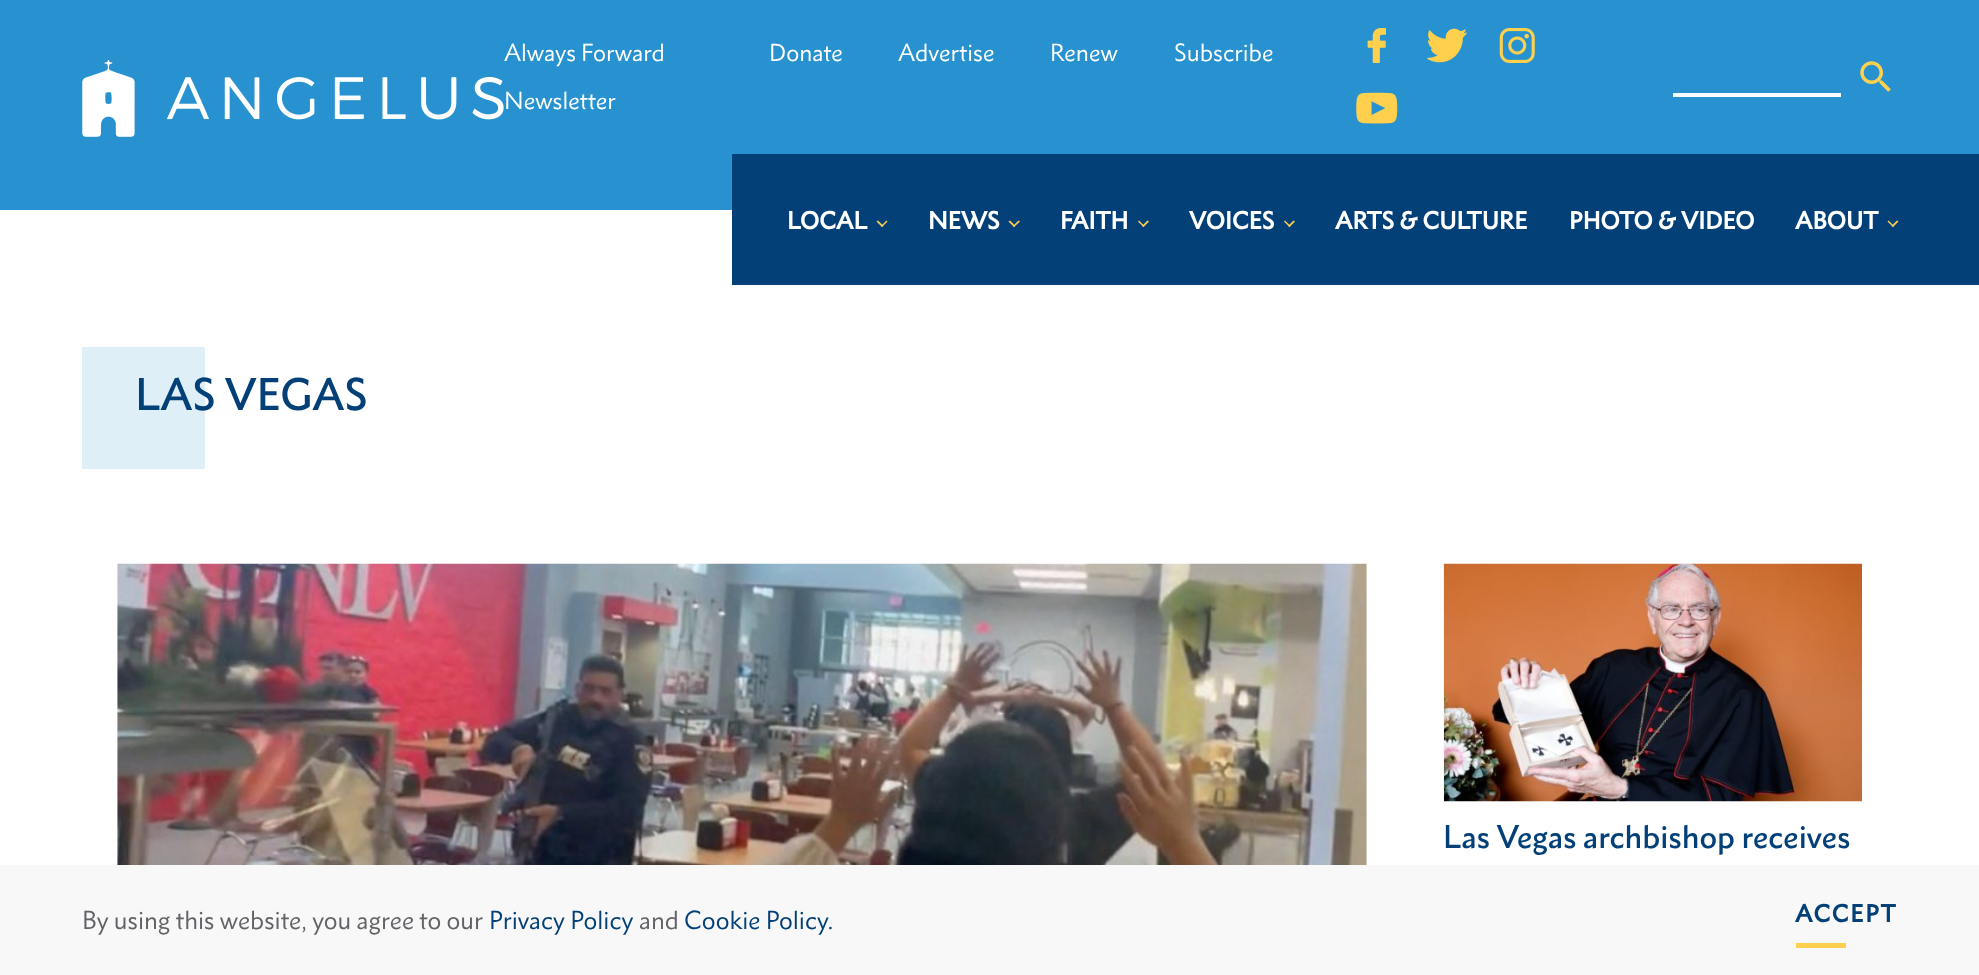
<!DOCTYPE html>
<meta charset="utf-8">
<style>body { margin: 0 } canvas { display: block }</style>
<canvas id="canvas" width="1979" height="975"></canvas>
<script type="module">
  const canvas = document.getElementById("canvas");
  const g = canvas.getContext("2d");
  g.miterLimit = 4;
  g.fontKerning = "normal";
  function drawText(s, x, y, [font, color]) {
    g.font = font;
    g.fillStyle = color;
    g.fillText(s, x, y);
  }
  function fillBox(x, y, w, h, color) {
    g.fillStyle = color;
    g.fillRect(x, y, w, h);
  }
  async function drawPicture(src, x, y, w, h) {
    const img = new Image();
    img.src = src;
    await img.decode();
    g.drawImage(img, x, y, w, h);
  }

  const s1 = ["22.5px 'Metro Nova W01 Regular'", "#FFFFFF"];
  const s2 = ["bold 22.5px 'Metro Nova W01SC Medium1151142'", "#FFFFFF"];
  const s3 = ["500 41.5px 'Metro Nova W01SC Medium1151142'", "#034078"];
  const s4 = ["500 29.75px 'Metro Nova W01SC Medium1151142'", "#034078"];
  const s5 = ["23.75px 'Metro Nova W01 Regular'", "#636267"];
  const s6 = ["23.75px 'Metro Nova W01 Regular'", "#034078"];
  const s7 = ["bold 22.5px 'Metro Nova W01SC Medium1151142'", "#034078"];

  fillBox(0, 0, 1979, 975, "#FFFFFF");
  fillBox(0, 0, 1979, 210, "#2792CF");
  await drawPicture("pic1.png", 82, 60, 422, 77);
  drawText("Always Forward", 504, 61, s1);
  drawText("Newsletter", 504, 109, s1);
  drawText("Donate", 769, 61, s1);
  drawText("Advertise", 898, 61, s1);
  drawText("Renew", 1050, 61, s1);
  drawText("Subscribe", 1174, 61, s1);
  await drawPicture("pic2.png", 1367, 28, 19, 35);
  await drawPicture("pic3.png", 1427, 28, 40, 35);
  await drawPicture("pic4.png", 1499, 28, 36, 35);
  await drawPicture("pic5.png", 1356, 92, 42, 32);
  await drawPicture("pic6.png", 1860, 61, 31, 31);
  fillBox(1673, 93, 168, 4, "#FFFFFF");
  fillBox(732, 154, 1247, 131, "#034078");
  drawText("LOCAL", 787, 229, s2);
  g.fillStyle = "#FFD04E";
  g.beginPath();
  g.moveTo(887.5, 221.5);
  g.lineTo(882, 227);
  g.lineTo(881, 226);
  g.lineTo(886.5, 220.5);
  g.closePath();
  g.fill();
  g.beginPath();
  g.moveTo(883.5, 226);
  g.lineTo(882, 227);
  g.lineTo(876.5, 221.5);
  g.lineTo(878, 220.5);
  g.closePath();
  g.fill();
  drawText("NEWS", 928, 229, s2);
  g.fillStyle = "#FFD04E";
  g.beginPath();
  g.moveTo(1020, 221.5);
  g.lineTo(1014, 227);
  g.lineTo(1013, 226);
  g.lineTo(1018.5, 220.5);
  g.closePath();
  g.fill();
  g.beginPath();
  g.moveTo(1015.5, 226);
  g.lineTo(1014, 227);
  g.lineTo(1008.5, 221.5);
  g.lineTo(1010, 220.5);
  g.closePath();
  g.fill();
  drawText("FAITH", 1060, 229, s2);
  g.fillStyle = "#FFD04E";
  g.beginPath();
  g.moveTo(1149, 221.5);
  g.lineTo(1143.5, 227);
  g.lineTo(1142, 226);
  g.lineTo(1147.5, 220.5);
  g.closePath();
  g.fill();
  g.beginPath();
  g.moveTo(1144.5, 226);
  g.lineTo(1143.5, 227);
  g.lineTo(1138, 221.5);
  g.lineTo(1139, 220.5);
  g.closePath();
  g.fill();
  drawText("VOICES", 1189, 229, s2);
  g.fillStyle = "#FFD04E";
  g.beginPath();
  g.moveTo(1295, 221.5);
  g.lineTo(1289.5, 227);
  g.lineTo(1288, 226);
  g.lineTo(1293.5, 220.5);
  g.closePath();
  g.fill();
  g.beginPath();
  g.moveTo(1290.5, 226);
  g.lineTo(1289.5, 227);
  g.lineTo(1284, 221.5);
  g.lineTo(1285, 220.5);
  g.closePath();
  g.fill();
  drawText("ARTS & CULTURE", 1335, 229, s2);
  drawText("PHOTO & VIDEO", 1569, 229, s2);
  drawText("ABOUT", 1795, 229, s2);
  g.fillStyle = "#FFD04E";
  g.beginPath();
  g.moveTo(1898.5, 221.5);
  g.lineTo(1893, 227);
  g.lineTo(1891.5, 226);
  g.lineTo(1897, 220.5);
  g.closePath();
  g.fill();
  g.beginPath();
  g.moveTo(1894, 226);
  g.lineTo(1893, 227);
  g.lineTo(1887.5, 221.5);
  g.lineTo(1888.5, 220.5);
  g.closePath();
  g.fill();
  fillBox(82, 347, 123, 122, "#DFEFF8");
  drawText("LAS VEGAS", 135, 410, s3);
  await drawPicture("pic7.png", 117, 563, 1250, 302);
  await drawPicture("pic8.png", 1443, 563, 419, 239);
  drawText("Las Vegas archbishop receives", 1443, 848, s4);
  fillBox(0, 865, 1979, 110, "#F8F8F8");
  drawText("By using this website, you agree to our", 82, 929, s5);
  drawText("Privacy Policy", 489, 929, s6);
  drawText("and", 639, 929, s5);
  drawText("Cookie Policy.", 684, 929, s6);
  g.letterSpacing = "1.75px";
  drawText("ACCEPT", 1795, 922, s7);
  fillBox(1796, 943, 50, 5, "#FFD04E");
</script>
